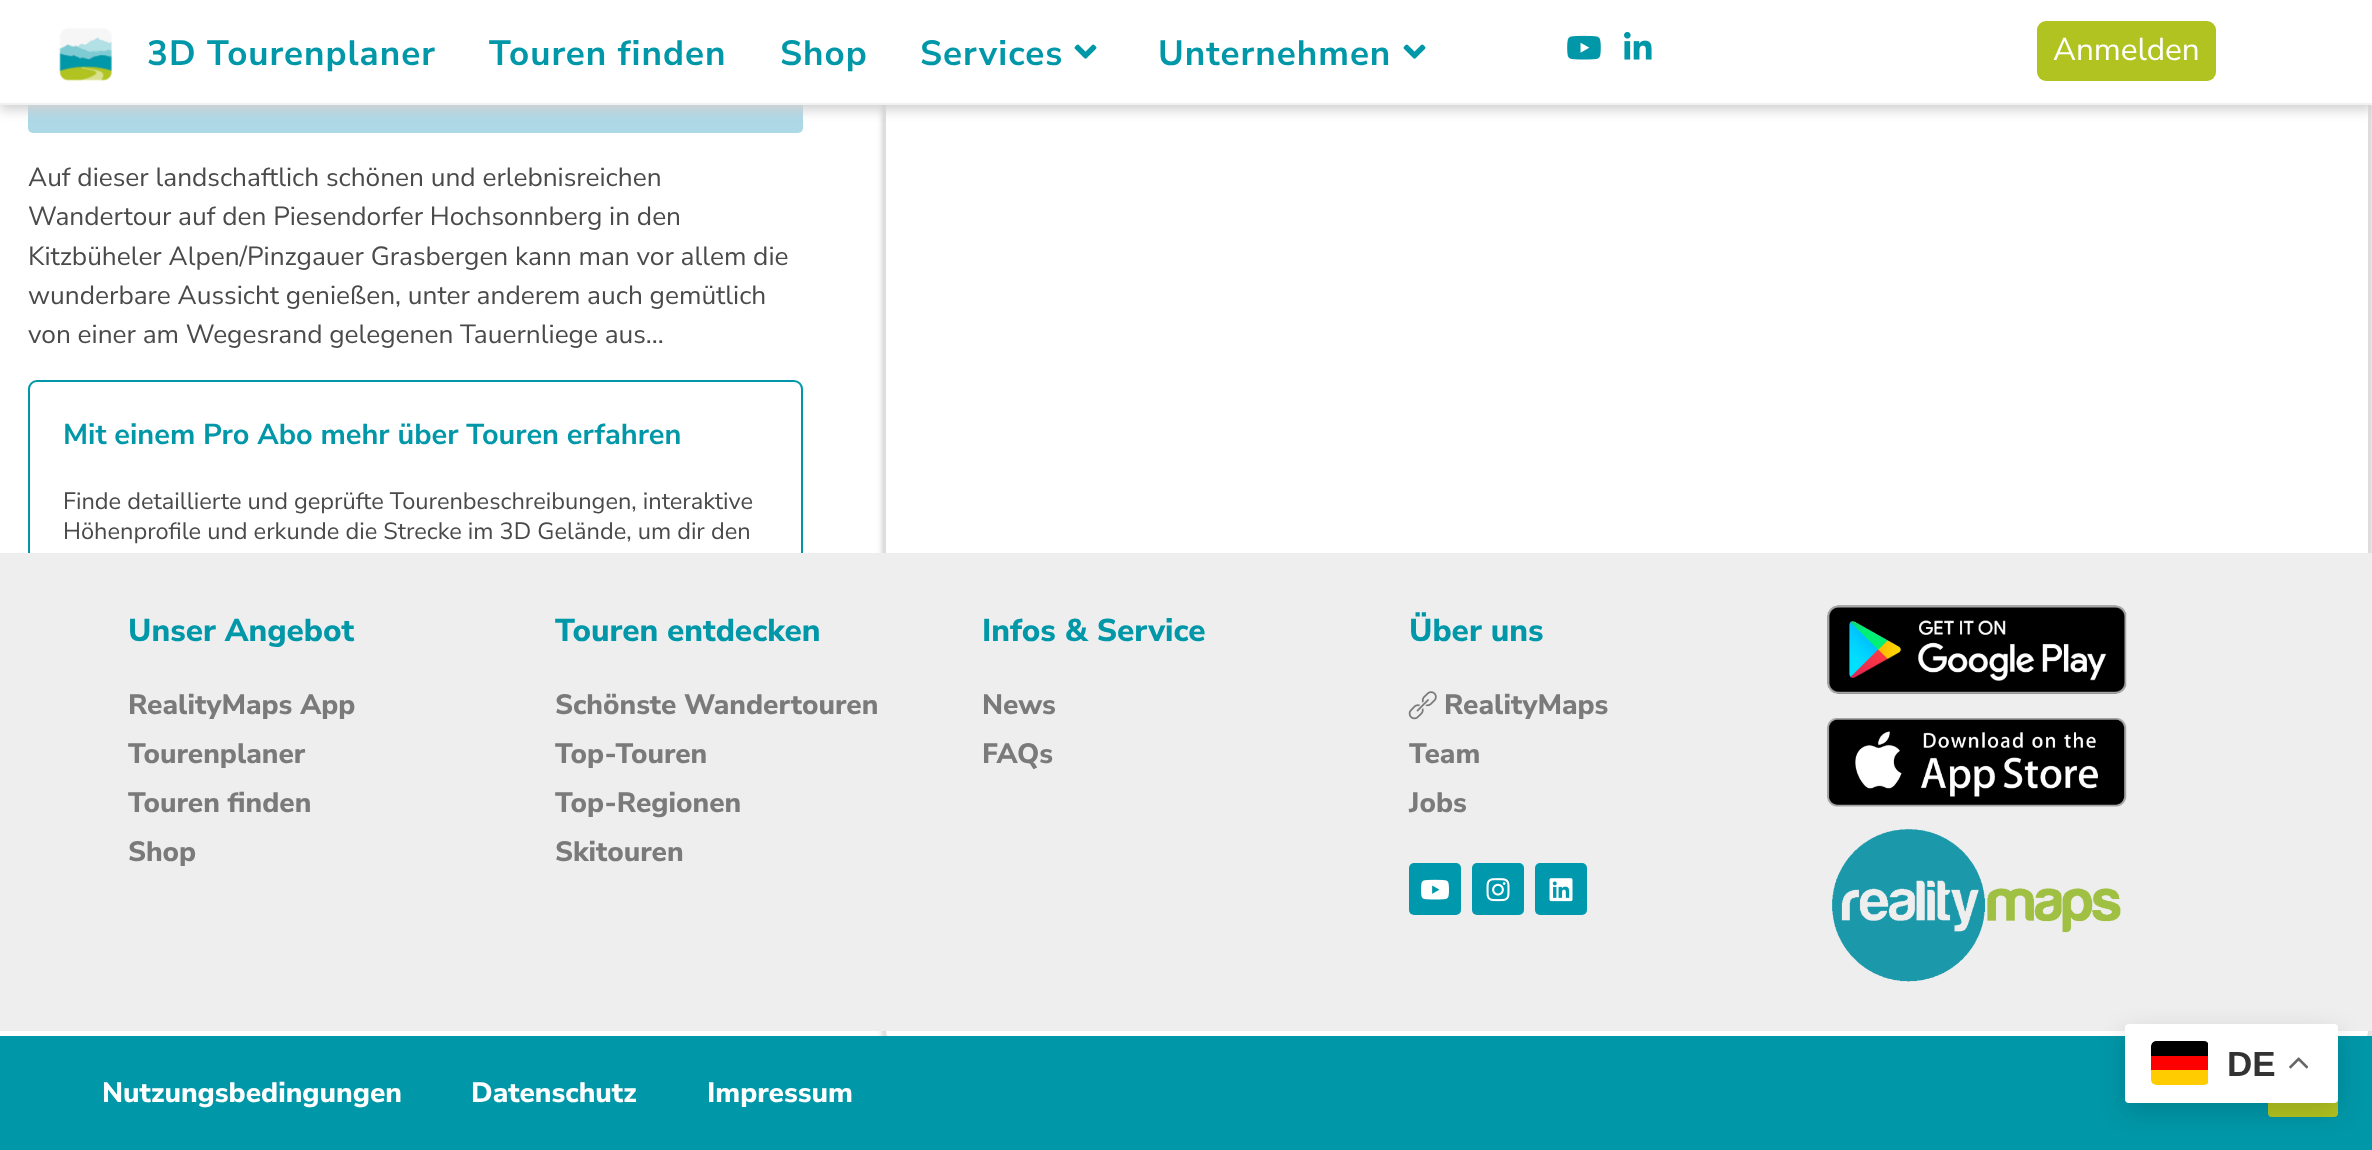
<!DOCTYPE html>
<meta charset="utf-8">
<style>body { margin: 0 } canvas { display: block }</style>
<canvas id="canvas" width="2372" height="1150"></canvas>
<script type="module">
  const canvas = document.getElementById("canvas");
  const g = canvas.getContext("2d");
  g.miterLimit = 4;
  g.fontKerning = "normal";
  function drawText(s, x, y, [font, color]) {
    g.font = font;
    g.fillStyle = color;
    g.fillText(s, x, y);
  }
  function fillBox(x, y, w, h, color) {
    g.fillStyle = color;
    g.fillRect(x, y, w, h);
  }
  function fillRounded(x, y, w, h, r, color) {
    g.fillStyle = color;
    g.beginPath();
    g.roundRect(x, y, w, h, r);
    g.fill();
  }
  async function drawPicture(src, x, y, w, h) {
    const img = new Image();
    img.src = src;
    await img.decode();
    g.drawImage(img, x, y, w, h);
  }

  const s1 = ["bold 35px Nunito Sans", "#0097A8"];
  const s2 = ["31.5px Nunito Sans", "#FFFFFF"];
  const s3 = ["26.25px Nunito Sans", "#4A4A4A"];
  const s4 = ["bold 28.9px Nunito Sans", "#0097A8"];
  const s5 = ["23.6px Nunito Sans", "#4A4A4A"];
  const s6 = ["800 31.5px Nunito Sans", "#0097A8"];
  const s7 = ["800 28px Nunito Sans", "#7A7A7A"];
  const s8 = ["800 28px Nunito Sans", "#FFFFFF"];
  const s9 = ["bold 35px Liberation Sans", "#333333"];

  fillBox(0, 0, 2372, 1150, "#FFFFFF");
  fillRounded(28, -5, 775, 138, 5, "#ADD8E6");
  g.save();
  g.beginPath();
  g.moveTo(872, 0);
  g.lineTo(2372, 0);
  g.lineTo(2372, 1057);
  g.lineTo(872, 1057);
  g.closePath();
  g.moveTo(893, -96);
  g.lineTo(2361, -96);
  g.bezierCurveTo(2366, -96, 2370, -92, 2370, -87);
  g.lineTo(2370, 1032);
  g.bezierCurveTo(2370, 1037, 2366, 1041, 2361, 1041);
  g.lineTo(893, 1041);
  g.bezierCurveTo(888, 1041, 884, 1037, 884, 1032);
  g.lineTo(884, -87);
  g.bezierCurveTo(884, -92, 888, -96, 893, -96);
  g.closePath();
  g.clip("evenodd");
  g.fillStyle = "rgba(0, 0, 0, 0.3)";
  g.filter = "blur(3.5px)";
  g.beginPath();
  g.roundRect(884, -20, 1486, 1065, 9);
  g.fill();
  g.filter = "none";
  g.restore();
  g.beginPath();
  g.roundRect(885, -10, 1484, 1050, 8);
  g.strokeStyle = "#DDDDDD";
  g.lineWidth = 2;
  g.stroke();
  g.fillStyle = "#D0D0D0";
  g.filter = "blur(6px)";
  g.beginPath();
  g.rect(0, 5, 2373, 105);
  g.fill();
  g.filter = "none";
  fillBox(0, 0, 2372, 103, "#FFFFFF");
  fillBox(0, 103, 2372, 2, "#F1F1F1");
  await drawPicture("pic1.png", 59, 28, 53, 53);
  g.letterSpacing = "1px";
  drawText("3D Tourenplaner", 147, 65, s1);
  drawText("Touren finden", 489, 65, s1);
  drawText("Shop", 780, 65, s1);
  drawText("Services", 920, 65, s1);
  await drawPicture("pic2.png", 1074, 44, 23, 15);
  drawText("Unternehmen", 1158, 65, s1);
  await drawPicture("pic2.png", 1403, 44, 23, 15);
  await drawPicture("pic3.png", 1567, 35, 34, 25);
  await drawPicture("pic4.png", 1624, 32, 28, 28);
  fillRounded(2037, 21, 179, 60, 9, "#B1C321");
  g.letterSpacing = "0px";
  drawText("Anmelden", 2053, 60, s2);
  drawText("Auf dieser landschaftlich schönen und erlebnisreichen", 28, 186, s3);
  drawText("Wandertour auf den Piesendorfer Hochsonnberg in den", 28, 225, s3);
  drawText("Kitzbüheler Alpen/Pinzgauer Grasbergen kann man vor allem die", 28, 265, s3);
  drawText("wunderbare Aussicht genießen, unter anderem auch gemütlich", 28, 304, s3);
  drawText("von einer am Wegesrand gelegenen Tauernliege aus...", 28, 343, s3);
  g.beginPath();
  g.roundRect(29, 381, 773, 357, 8);
  g.strokeStyle = "#0097A8";
  g.stroke();
  drawText("Mit einem Pro Abo mehr über Touren erfahren", 63, 444, s4);
  drawText("Finde detaillierte und geprüfte Tourenbeschreibungen, interaktive", 63, 509, s5);
  drawText("Höhenprofile und erkunde die Strecke im 3D Gelände, um dir den", 63, 539, s5);
  fillBox(0, 553, 2372, 478, "#EEEEEE");
  drawText("Unser Angebot", 128, 641, s6);
  drawText("RealityMaps App", 128, 714, s7);
  drawText("Tourenplaner", 128, 763, s7);
  drawText("Touren finden", 128, 812, s7);
  drawText("Shop", 128, 861, s7);
  drawText("Touren entdecken", 555, 641, s6);
  drawText("Schönste Wandertouren", 555, 714, s7);
  drawText("Top-Touren", 555, 763, s7);
  drawText("Top-Regionen", 555, 812, s7);
  drawText("Skitouren", 555, 861, s7);
  drawText("Infos & Service", 982, 641, s6);
  drawText("News", 982, 714, s7);
  drawText("FAQs", 982, 763, s7);
  drawText("Über uns", 1409, 641, s6);
  await drawPicture("pic5.png", 1408, 691, 29, 29);
  drawText("RealityMaps", 1444, 714, s7);
  drawText("Team", 1409, 763, s7);
  drawText("Jobs", 1409, 812, s7);
  fillRounded(1409, 863, 52, 52, 5, "#0098AD");
  await drawPicture("pic6.png", 1421, 879, 28, 21);
  fillRounded(1472, 863, 52, 52, 5, "#0098AD");
  await drawPicture("pic7.png", 1486, 878, 24, 24);
  fillRounded(1535, 863, 52, 52, 5, "#0098AD");
  await drawPicture("pic8.png", 1549, 878, 24, 24);
  await drawPicture("pic9.png", 1827, 605, 300, 89);
  await drawPicture("pic10.png", 1827, 718, 300, 89);
  await drawPicture("pic11.png", 1832, 829, 289, 153);
  fillBox(0, 1036, 2372, 114, "#0097A8");
  drawText("Nutzungsbedingungen", 102, 1102, s8);
  drawText("Datenschutz", 471, 1102, s8);
  drawText("Impressum", 707, 1102, s8);
  fillRounded(2268, 1047, 70, 70, 4, "#B1C321");
  g.fillStyle = "rgba(0, 0, 0, 0.15)";
  g.filter = "blur(13px)";
  g.beginPath();
  g.roundRect(2125, 1033, 213, 78, 4);
  g.fill();
  g.filter = "none";
  fillRounded(2125, 1024, 213, 79, 4, "#FFFFFF");
  g.save();
  g.beginPath();
  g.roundRect(2151, 1041, 58, 44, 5);
  g.clip();
  g.fillStyle = "#FFCC00";
  g.beginPath();
  g.roundRect(2151, 1070, 57, 15, [0, 0, 0, 5]);
  g.fill();
  g.fillStyle = "#000000";
  g.beginPath();
  g.roundRect(2151, 1041, 57, 15, [5, 0, 0, 0]);
  g.fill();
  g.restore();
  fillBox(2151, 1056, 57, 14, "#FF0000");
  drawText("DE", 2227, 1076, s9);
  await drawPicture("pic12.png", 2289, 1057, 19, 12);
</script>
